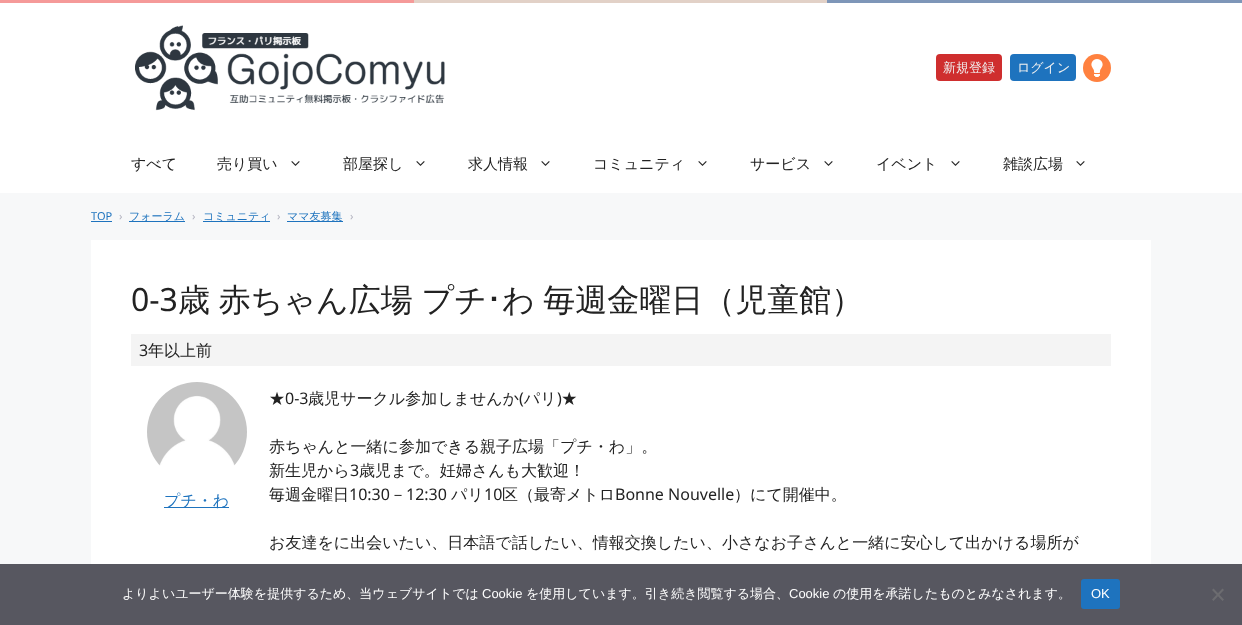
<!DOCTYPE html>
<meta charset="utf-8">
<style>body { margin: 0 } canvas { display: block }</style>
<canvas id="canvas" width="1242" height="625"></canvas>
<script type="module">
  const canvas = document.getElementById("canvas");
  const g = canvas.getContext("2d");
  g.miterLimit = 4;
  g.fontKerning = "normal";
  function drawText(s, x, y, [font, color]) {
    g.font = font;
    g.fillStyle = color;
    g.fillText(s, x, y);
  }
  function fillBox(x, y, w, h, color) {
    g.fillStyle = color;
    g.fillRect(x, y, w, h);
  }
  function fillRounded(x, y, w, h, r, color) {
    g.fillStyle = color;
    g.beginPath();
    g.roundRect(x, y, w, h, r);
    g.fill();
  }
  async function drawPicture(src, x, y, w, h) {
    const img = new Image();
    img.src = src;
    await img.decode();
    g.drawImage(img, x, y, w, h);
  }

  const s1 = ["500 13px WenQuanYi Zen Hei", "#F0F0F0"];
  const s2 = ["500 15px WenQuanYi Zen Hei", "#222222"];
  const s3 = ["11px Noto Sans", "#1E73BE"];
  const s4 = ["11px Noto Sans", "#B2B2BE"];
  const s5 = ["500 11px WenQuanYi Zen Hei", "#1E73BE"];
  const s6 = ["32px Noto Sans", "#222222"];
  const s7 = ["500 32px WenQuanYi Zen Hei", "#222222"];
  const s8 = ["32px IPAPGothic", "#222222"];
  const s9 = ["16px Noto Sans", "#222222"];
  const s10 = ["500 16px WenQuanYi Zen Hei", "#222222"];
  const s11 = ["500 16px WenQuanYi Zen Hei", "#1E73BE"];
  const s12 = ["500 13px WenQuanYi Zen Hei", "#FFFFFF"];
  const s13 = ["13px Liberation Sans", "#FFFFFF"];

  fillBox(0, 0, 1242, 625, "#F7F8F9");
  fillBox(0, 0, 414, 3, "#F59A99");
  fillBox(414, 0, 413, 3, "#E2D1C7");
  fillBox(827, 0, 415, 3, "#7E96B8");
  fillBox(0, 3, 1242, 190, "#FFFFFF");
  await drawPicture("pic1.png", 135, 25, 310, 86);
  fillRounded(936, 54, 66, 27, 4, "#CF2E2E");
  drawText("新規登録", 943, 72, s1);
  fillRounded(1010, 54, 66, 27, 4, "#1E73BE");
  drawText("ログイン", 1017, 72, s1);
  g.fillStyle = "#FF813F";
  g.beginPath();
  g.arc(1097, 68, 14, 0, Math.PI * 2);
  g.fill();
  await drawPicture("pic2.png", 1091, 59, 12, 18);
  drawText("すべて", 131, 169, s2);
  drawText("売り買い", 217, 169, s2);
  await drawPicture("pic3.png", 291, 161, 9, 5);
  drawText("部屋探し", 343, 169, s2);
  await drawPicture("pic3.png", 416, 161, 9, 5);
  drawText("求人情報", 468, 169, s2);
  await drawPicture("pic3.png", 541, 161, 9, 5);
  drawText("コミュニティ", 593, 169, s2);
  await drawPicture("pic3.png", 698, 161, 9, 5);
  drawText("サービス", 750, 169, s2);
  await drawPicture("pic3.png", 824, 161, 9, 5);
  drawText("イベント", 876, 169, s2);
  await drawPicture("pic3.png", 951, 161, 9, 5);
  drawText("雑談広場", 1003, 169, s2);
  await drawPicture("pic3.png", 1076, 161, 9, 5);
  drawText("TOP", 91, 220, s3);
  fillBox(91, 221, 21, 1, "#1E73BE");
  drawText("›", 119, 220, s4);
  fillBox(129, 221, 56, 1, "#1E73BE");
  drawText("フォーラム", 129, 220, s5);
  drawText("›", 192, 220, s4);
  fillBox(203, 221, 67, 1, "#1E73BE");
  drawText("コミュニティ", 203, 220, s5);
  drawText("›", 277, 220, s4);
  fillBox(287, 221, 56, 1, "#1E73BE");
  drawText("ママ友募集", 287, 220, s5);
  drawText("›", 350, 220, s4);
  fillBox(91, 240, 1060, 324, "#FFFFFF");
  drawText("0-3", 131, 311, s6);
  g.wordSpacing = "-1px";
  drawText("歳 赤ちゃん広場 プチ", 178, 311, s7);
  g.wordSpacing = "0px";
  drawText("･", 486, 311, s8);
  g.wordSpacing = "-1px";
  drawText("わ 毎週金曜日（児童館）", 502, 311, s7);
  fillBox(131, 334, 980, 32, "#F4F4F4");
  g.wordSpacing = "0px";
  drawText("3", 139, 356, s9);
  drawText("年以上前", 148, 356, s10);
  await drawPicture("pic4.png", 147, 382, 100, 84);
  fillBox(164, 507, 65, 1, "#1E73BE");
  drawText("プチ・わ", 164, 506, s11);
  drawText("★", 269, 404, s10);
  drawText("0-3", 285, 404, s9);
  drawText("歳児サークル参加しませんか パリ ★", 308, 404, s10);
  drawText("(", 519, 404, s9);
  drawText(")", 557, 404, s9);
  drawText("赤ちゃんと一緒に参加できる親子広場「プチ・わ」。", 269, 452, s10);
  drawText("新生児から", 269, 476, s10);
  drawText("3", 350, 476, s9);
  drawText("歳児まで。妊婦さんも大歓迎！", 359, 476, s10);
  drawText("毎週金曜日", 269, 500, s10);
  drawText("10:30", 349, 500, s9);
  drawText("－", 390, 500, s10);
  drawText("12:30", 406, 500, s9);
  drawText("パリ", 451, 500, s10);
  drawText("10", 484, 500, s9);
  drawText("区（最寄メトロ", 502, 500, s10);
  drawText("Bonne Nouvelle", 615, 500, s9);
  drawText("）にて開催中。", 734, 500, s10);
  drawText("お友達をに出会いたい、日本語で話したい、情報交換したい、小さなお子さんと一緒に安心して出かける場所が", 269, 548, s10);
  fillBox(0, 564, 1242, 61, "#575760");
  drawText("よりよいユーザー体験を提供するため、当ウェブサイトでは", 122, 598, s12);
  drawText("Cookie", 482, 598, s13);
  drawText("を使用しています。引き続き閲覧する場合、", 526, 598, s12);
  drawText("Cookie", 789, 598, s13);
  drawText("の使用を承諾したものとみなされます。", 833, 598, s12);
  fillRounded(1081, 579, 39, 30, 3, "#1E73BE");
  drawText("OK", 1091, 598, s13);
  g.fillStyle = "#6C6C70";
  g.beginPath();
  g.moveTo(1222.5, 588.5);
  g.lineTo(1224, 590);
  g.lineTo(1213.5, 601);
  g.lineTo(1212, 599.5);
  g.closePath();
  g.fill();
  g.beginPath();
  g.moveTo(1212, 590);
  g.lineTo(1213.5, 588.5);
  g.lineTo(1224, 599.5);
  g.lineTo(1222.5, 601);
  g.closePath();
  g.fill();
</script>
